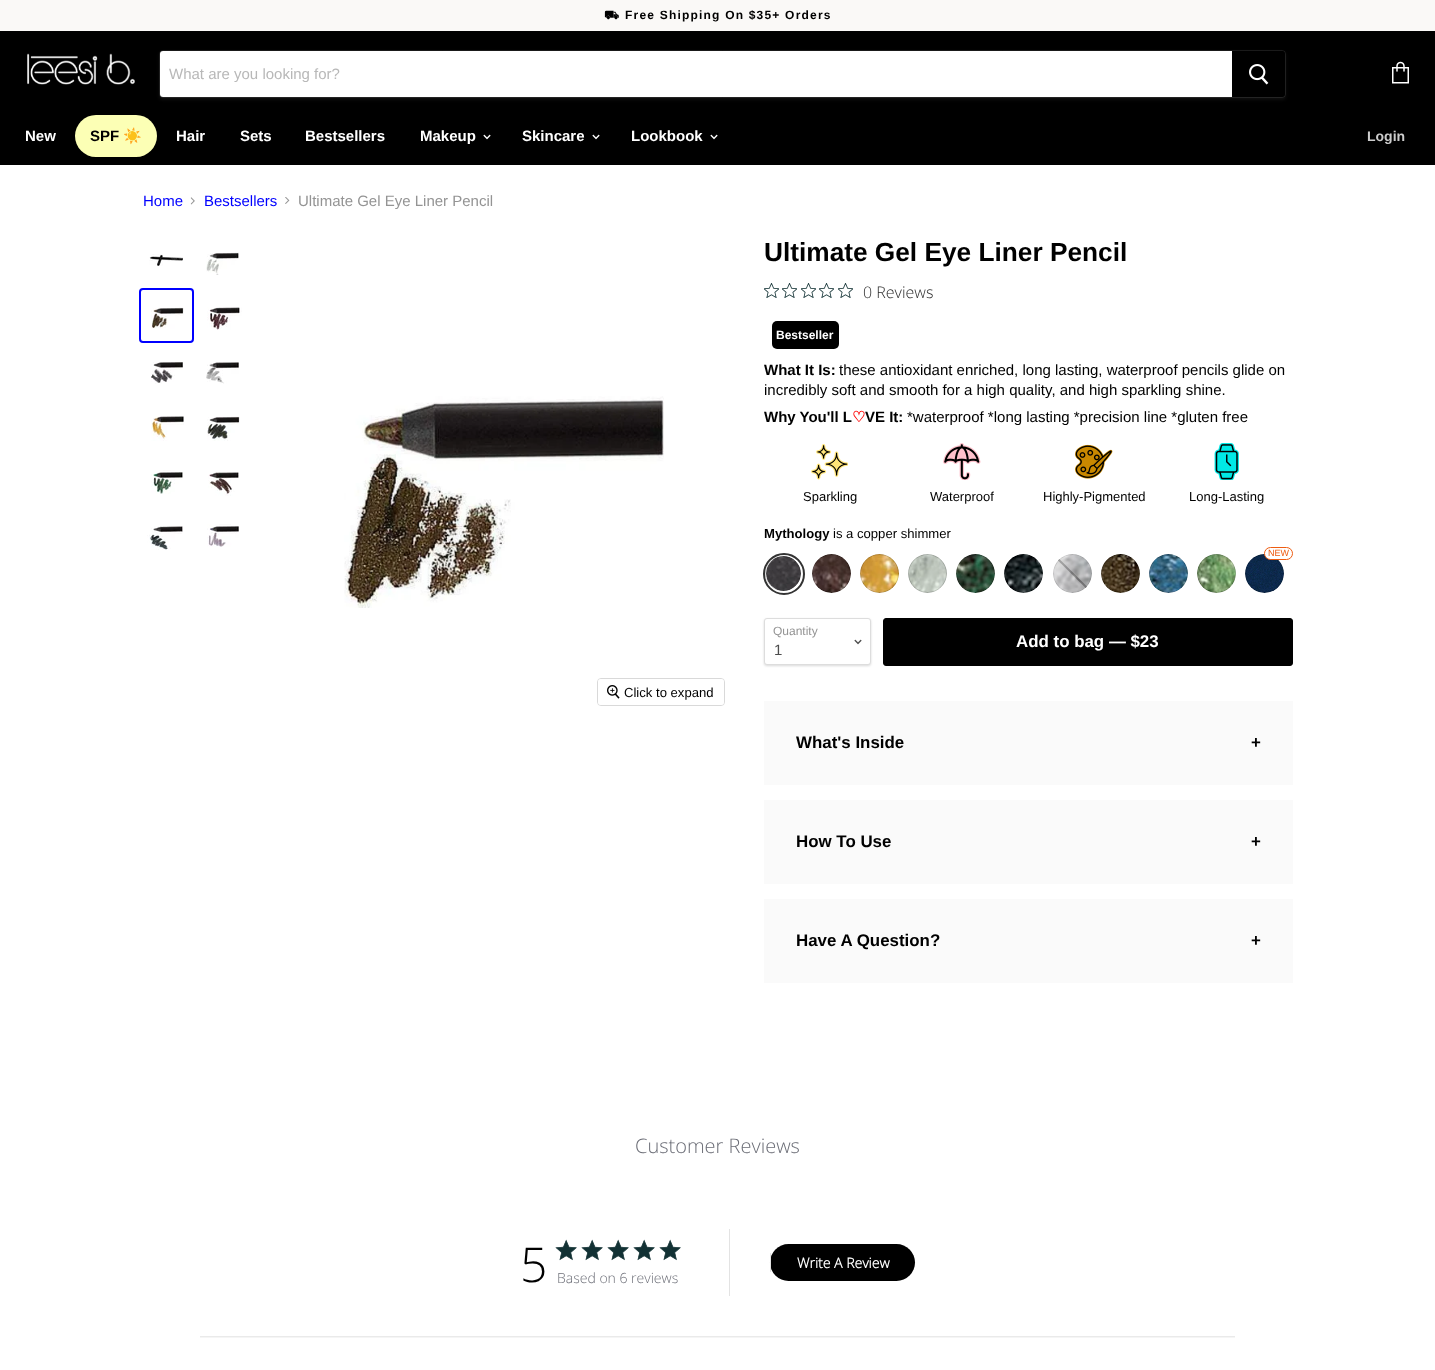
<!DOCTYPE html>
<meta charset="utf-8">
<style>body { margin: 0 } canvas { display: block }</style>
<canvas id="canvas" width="1435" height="1370"></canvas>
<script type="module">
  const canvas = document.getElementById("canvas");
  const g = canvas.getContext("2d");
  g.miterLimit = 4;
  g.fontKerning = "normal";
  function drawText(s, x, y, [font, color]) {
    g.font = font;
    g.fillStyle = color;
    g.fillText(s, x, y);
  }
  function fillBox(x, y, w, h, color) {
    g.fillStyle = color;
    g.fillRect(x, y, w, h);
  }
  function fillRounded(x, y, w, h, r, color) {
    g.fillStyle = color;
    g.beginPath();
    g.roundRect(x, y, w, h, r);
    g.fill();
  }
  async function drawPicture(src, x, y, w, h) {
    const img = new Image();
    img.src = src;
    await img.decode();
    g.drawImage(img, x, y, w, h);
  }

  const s1 = ["bold 12px STIX Two Math", "#000000"];
  const s2 = ["bold 12px Arimo", "#000000"];
  const s3 = ["15px Arimo", "#B8B8B8"];
  const s4 = ["bold 15px Arimo", "#FFFFFF"];
  const s5 = ["bold 15px Arimo", "#000000"];
  const s6 = ["bold 15px Noto Color Emoji", "#000000"];
  const s7 = ["bold 14px Arimo", "#CCCCCC"];
  const s8 = ["15px Arimo", "#0000FF"];
  const s9 = ["15px Arimo", "#949494"];
  const s10 = ["13.1px Arimo", "#000000"];
  const s11 = ["bold 26.25px Arimo", "#000000"];
  const s12 = ["300 16px Open Sans", "#2C2C2C"];
  const s13 = ["bold 12px Arimo", "#FFFFFF"];
  const s14 = ["15px Arimo", "#000000"];
  const s15 = ["bold 15px DejaVu Sans", "#FF0000"];
  const s16 = ["13px Arimo", "#000000"];
  const s17 = ["bold 13.1px Arimo", "#000000"];
  const s18 = ["9px Arimo", "#EE5C11"];
  const s19 = ["12px Arimo", "#949494"];
  const s20 = ["15px Arimo", "#4D4D4D"];
  const s21 = ["bold 16.9px Arimo", "#FFFFFF"];
  const s22 = ["bold 16.9px Arimo", "#000000"];
  const s23 = ["300 20px Open Sans", "#6B6D76"];
  const s24 = ["300 48px Open Sans", "#000000"];
  const s25 = ["300 14px Open Sans", "#6B6D76"];
  const s26 = ["bold 14px Open Sans", "#FFFFFF"];

  fillBox(0, 0, 1435, 1370, "#FFFFFF");
  fillBox(0, 0, 1435, 31, "#FAF9F7");
  g.letterSpacing = "1.2px";
  drawText("⛟", 604, 19, s1);
  drawText("Free Shipping On $35+ Orders", 625, 19, s2);
  fillBox(0, 31, 1435, 134, "#000000");
  await drawPicture("pic1.png", 27, 53, 108, 32);
  g.fillStyle = "rgba(127, 127, 127, 0.11)";
  g.filter = "blur(1.5px)";
  g.beginPath();
  g.roundRect(159, 52, 1127, 48, 4);
  g.fill();
  g.filter = "none";
  g.beginPath();
  g.roundRect(159.5, 50.5, 1126, 47, 3.5);
  g.strokeStyle = "rgba(127, 127, 127, 0.2)";
  g.stroke();
  g.fillStyle = "#FFFFFF";
  g.beginPath();
  g.roundRect(160, 51, 1072, 46, [3, 0, 0, 3]);
  g.fill();
  g.letterSpacing = "0px";
  drawText("What are you looking for?", 169, 79, s3);
  g.fillStyle = "#000000";
  g.beginPath();
  g.roundRect(1232.5, 51.5, 52, 45, [0, 2.5, 2.5, 0]);
  g.fill();
  g.strokeStyle = "#000000";
  g.stroke();
  await drawPicture("pic2.png", 1249, 64, 20, 21);
  await drawPicture("pic3.png", 1392, 61, 17, 23);
  drawText("New", 25, 141, s4);
  fillRounded(75, 115, 82, 42, 21, "#FCFFB5");
  drawText("SPF", 90, 141, s5);
  drawText("☀️", 123, 141, s6);
  drawText("Hair", 176, 141, s4);
  drawText("Sets", 240, 141, s4);
  drawText("Bestsellers", 305, 141, s4);
  drawText("Makeup", 420, 141, s4);
  await drawPicture("pic4.png", 483, 134, 8, 6);
  drawText("Skincare", 522, 141, s4);
  await drawPicture("pic4.png", 592, 134, 8, 6);
  drawText("Lookbook", 631, 141, s4);
  await drawPicture("pic4.png", 710, 134, 8, 6);
  drawText("Login", 1367, 141, s7);
  drawText("Home", 143, 206, s8);
  await drawPicture("pic5.png", 190, 197, 5, 8);
  drawText("Bestsellers", 204, 206, s8);
  await drawPicture("pic6.png", 285, 197, 5, 7);
  drawText("Ultimate Gel Eye Liner Pencil", 298, 206, s9);
  await drawPicture("pic7.png", 149, 254, 34, 12);
  await drawPicture("pic8.png", 206, 252, 33, 23);
  g.beginPath();
  g.roundRect(140, 289, 53, 53, 3);
  g.strokeStyle = "#0000FF";
  g.lineWidth = 2;
  g.stroke();
  await drawPicture("pic9.png", 151, 307, 33, 22);
  await drawPicture("pic10.png", 207, 307, 35, 23);
  await drawPicture("pic11.png", 151, 362, 32, 22);
  await drawPicture("pic12.png", 206, 362, 33, 22);
  await drawPicture("pic13.png", 151, 416, 33, 25);
  await drawPicture("pic14.png", 207, 416, 33, 25);
  await drawPicture("pic15.png", 151, 470, 32, 24);
  await drawPicture("pic16.png", 208, 472, 31, 24);
  await drawPicture("pic17.png", 147, 526, 36, 24);
  await drawPicture("pic18.png", 207, 524, 32, 23);
  await drawPicture("pic19.png", 344, 396, 320, 212);
  g.beginPath();
  g.roundRect(597.5, 678.5, 127, 27, 3.5);
  g.strokeStyle = "#D9D9D9";
  g.lineWidth = 1;
  g.stroke();
  fillRounded(598, 679, 126, 26, 3, "rgba(255, 255, 255, 0.9)");
  await drawPicture("pic20.png", 607, 685, 13, 14);
  drawText("Click to expand", 624, 697, s10);
  drawText("Ultimate Gel Eye Liner Pencil", 764, 261, s11);
  await drawPicture("pic21.png", 764, 283, 15, 15);
  await drawPicture("pic21.png", 782, 283, 15, 15);
  await drawPicture("pic21.png", 801, 283, 15, 15);
  await drawPicture("pic21.png", 819, 283, 15, 15);
  await drawPicture("pic21.png", 838, 283, 15, 15);
  drawText("0 Reviews", 863, 298, s12);
  fillRounded(772, 321, 67, 28, 5, "#000000");
  drawText("Bestseller", 776, 339, s13);
  drawText("What It Is:", 764, 375, s5);
  drawText("these antioxidant enriched, long lasting, waterproof pencils glide on", 839, 375, s14);
  drawText("incredibly soft and smooth for a high quality, and high sparkling shine.", 764, 395, s14);
  drawText("Why You'll L", 764, 422, s5);
  drawText("♡", 852, 422, s15);
  drawText("VE It:", 865, 422, s5);
  drawText("*waterproof *long lasting *precision line *gluten free", 907, 422, s14);
  await drawPicture("pic22.png", 811, 444, 37, 36);
  drawText("Sparkling", 803, 501, s16);
  await drawPicture("pic23.png", 943, 443, 38, 37);
  drawText("Waterproof", 930, 501, s16);
  await drawPicture("pic24.png", 1075, 444, 38, 35);
  drawText("Highly-Pigmented", 1043, 501, s16);
  await drawPicture("pic25.png", 1214, 443, 25, 37);
  drawText("Long-Lasting", 1189, 501, s16);
  drawText("Mythology", 764, 538, s17);
  drawText("is a copper shimmer", 833, 538, s10);
  g.beginPath();
  g.arc(784, 574, 20, 0, Math.PI * 2);
  g.strokeStyle = "#333333";
  g.lineWidth = 2;
  g.stroke();
  await drawPicture("pic26.png", 766, 556, 35, 35);
  g.beginPath();
  g.roundRect(765.45, 556.45, 35.1, 34.1, 17.05);
  g.strokeStyle = "rgba(0, 0, 0, 0.15)";
  g.lineWidth = 0.9;
  g.stroke();
  await drawPicture("pic27.png", 812, 554, 39, 39);
  g.beginPath();
  g.arc(831.5, 573.5, 19, 0, Math.PI * 2);
  g.lineWidth = 1;
  g.stroke();
  await drawPicture("pic28.png", 860, 554, 39, 39);
  g.beginPath();
  g.arc(879.5, 573.5, 19, 0, Math.PI * 2);
  g.stroke();
  await drawPicture("pic29.png", 908, 554, 39, 39);
  g.beginPath();
  g.arc(927.5, 573.5, 19, 0, Math.PI * 2);
  g.stroke();
  await drawPicture("pic30.png", 956, 554, 39, 39);
  g.beginPath();
  g.arc(975.5, 573.5, 19, 0, Math.PI * 2);
  g.stroke();
  await drawPicture("pic31.png", 1004, 554, 39, 39);
  g.beginPath();
  g.arc(1023.5, 573.5, 19, 0, Math.PI * 2);
  g.stroke();
  await drawPicture("pic33.png", 1058, 559, 29, 29);
  await drawPicture("pic32.png", 1053, 554, 39, 39);
  g.beginPath();
  g.arc(1072.5, 573.5, 19, 0, Math.PI * 2);
  g.strokeStyle = "rgba(0, 0, 0, 0.09)";
  g.stroke();
  await drawPicture("pic34.png", 1101, 554, 39, 39);
  g.beginPath();
  g.arc(1120.5, 573.5, 19, 0, Math.PI * 2);
  g.strokeStyle = "rgba(0, 0, 0, 0.15)";
  g.stroke();
  await drawPicture("pic35.png", 1149, 554, 39, 39);
  g.beginPath();
  g.arc(1168.5, 573.5, 19, 0, Math.PI * 2);
  g.stroke();
  await drawPicture("pic36.png", 1197, 554, 39, 39);
  g.beginPath();
  g.arc(1216.5, 573.5, 19, 0, Math.PI * 2);
  g.stroke();
  await drawPicture("pic37.png", 1245, 554, 39, 39);
  g.beginPath();
  g.arc(1264.5, 573.5, 19, 0, Math.PI * 2);
  g.stroke();
  g.fillStyle = "#FFFFFF";
  g.beginPath();
  g.roundRect(1264.5, 547.5, 28, 12, 6);
  g.fill();
  g.strokeStyle = "#EE5C11";
  g.stroke();
  drawText("NEW", 1268, 556, s18);
  g.fillStyle = "rgba(0, 0, 0, 0.15)";
  g.filter = "blur(1px)";
  g.beginPath();
  g.roundRect(764, 619, 107, 47, 3);
  g.fill();
  g.filter = "none";
  g.fillStyle = "#FFFFFF";
  g.beginPath();
  g.roundRect(764.5, 618.5, 106, 46, 2.5);
  g.fill();
  g.strokeStyle = "#DDDDDD";
  g.stroke();
  drawText("Quantity", 773, 635, s19);
  await drawPicture("pic38.png", 854, 639, 8, 6);
  drawText("1", 774, 655, s20);
  g.fillStyle = "#000000";
  g.beginPath();
  g.roundRect(883.5, 618.5, 409, 47, 2.5);
  g.fill();
  g.strokeStyle = "#000000";
  g.stroke();
  drawText("Add to bag — $23", 1016, 647, s21);
  fillBox(764, 701, 529, 84, "#FAFAFA");
  drawText("What's Inside", 796, 748, s22);
  drawText("+", 1251, 748, s22);
  fillBox(764, 800, 529, 84, "#FAFAFA");
  drawText("How To Use", 796, 847, s22);
  drawText("+", 1251, 847, s22);
  fillBox(764, 899, 529, 84, "#FAFAFA");
  drawText("Have A Question?", 796, 946, s22);
  drawText("+", 1251, 946, s22);
  drawText("Customer Reviews", 635, 1153, s23);
  drawText("5", 520, 1282, s24);
  await drawPicture("pic39.png", 555, 1239, 22, 22);
  await drawPicture("pic39.png", 581, 1239, 22, 22);
  await drawPicture("pic39.png", 607, 1239, 22, 22);
  await drawPicture("pic39.png", 633, 1239, 22, 22);
  await drawPicture("pic39.png", 659, 1239, 22, 22);
  drawText("Based on 6 reviews", 557, 1283, s25);
  fillBox(729, 1229, 1, 67, "#E3E3E3");
  fillRounded(770, 1244, 145, 37, 18.5, "#000000");
  fillBox(770, 1253, 1, 19, "#E3E3E3");
  drawText("Write A Review", 797, 1268, s26);
  await drawPicture("pic40.png", 200, 1336, 1035, 2);
</script>
